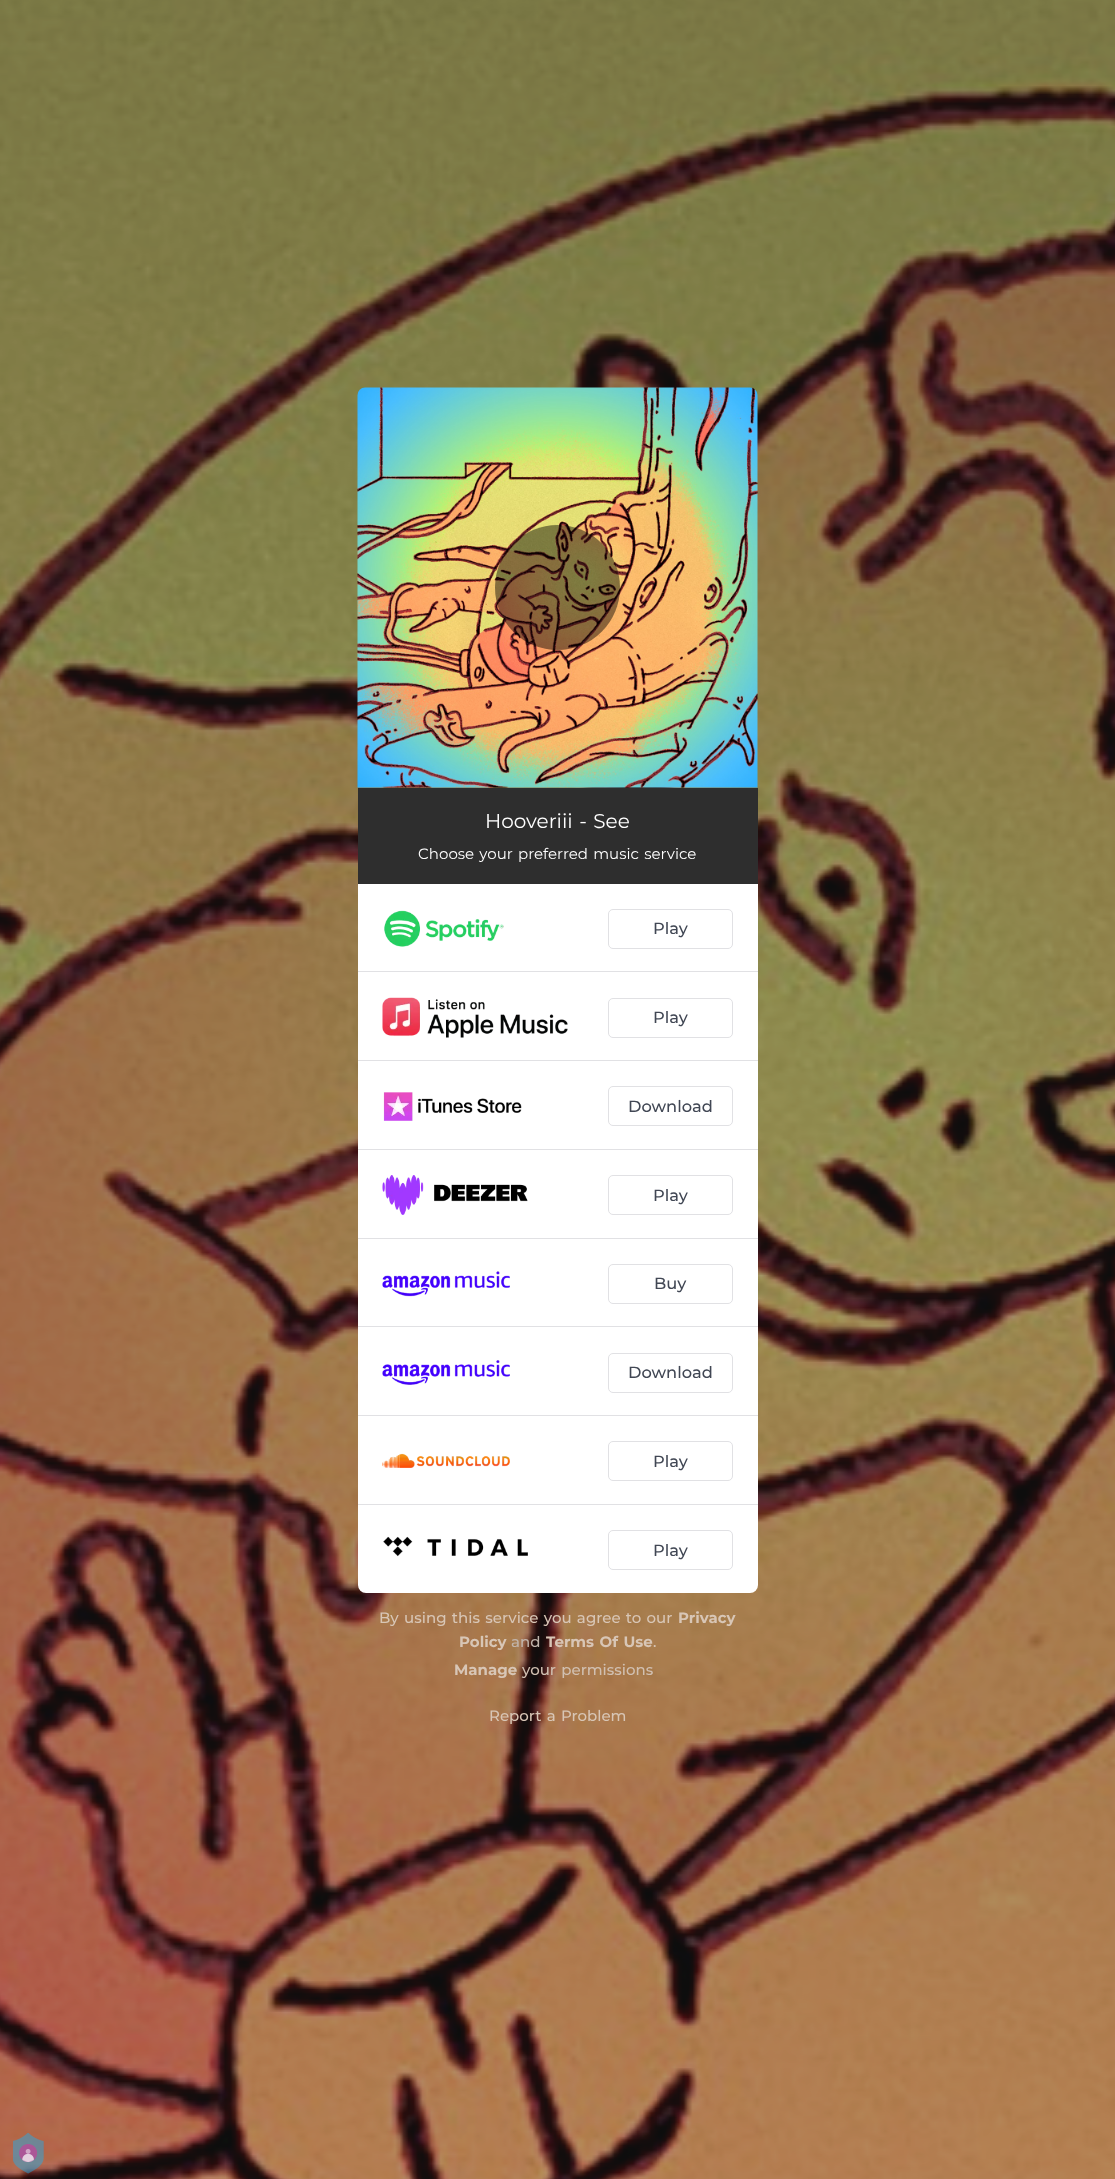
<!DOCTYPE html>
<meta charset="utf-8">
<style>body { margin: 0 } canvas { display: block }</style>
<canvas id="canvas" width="1115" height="2179"></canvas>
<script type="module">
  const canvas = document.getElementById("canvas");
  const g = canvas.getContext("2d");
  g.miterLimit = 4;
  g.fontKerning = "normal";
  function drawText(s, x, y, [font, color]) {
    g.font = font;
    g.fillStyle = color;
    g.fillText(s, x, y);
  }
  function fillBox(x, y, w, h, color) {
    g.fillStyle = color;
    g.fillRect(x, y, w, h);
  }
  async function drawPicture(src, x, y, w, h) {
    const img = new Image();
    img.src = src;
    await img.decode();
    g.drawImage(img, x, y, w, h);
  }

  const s1 = ["20px Montserrat", "#FFFFFF"];
  const s2 = ["15px Montserrat", "#FFFFFF"];
  const s3 = ["500 16.25px Montserrat", "#414754"];
  const s4 = ["500 15px Montserrat", "#D8C6B6"];
  const s5 = ["bold 15px Montserrat", "#D8C6B6"];
  const s6 = ["500 15px Montserrat", "#C2B5AC"];
  const s7 = ["500 15px Montserrat", "#D1C0B2"];

  fillBox(0, 0, 1115, 2179, "#FFFFFF");
  await drawPicture("pic1.png", 0, 0, 1115, 2179);
  await drawPicture("pic2.png", 357, 387, 401, 401);
  g.fillStyle = "rgba(0, 0, 0, 0.45)";
  g.beginPath();
  g.arc(557.5, 587.5, 62.5, 0, Math.PI * 2);
  g.fill();
  fillBox(358, 788, 400, 96, "#2E2E2E");
  g.wordSpacing = "1.25px";
  drawText("Hooveriii - See", 485, 828, s1);
  drawText("Choose your preferred music service", 418, 859, s2);
  g.beginPath();
  g.roundRect(358, 884, 400, 709, [0, 0, 8, 8]);
  g.fill();
  fillBox(358, 971, 400, 1, "#E1E1E4");
  await drawPicture("pic3.png", 384, 910, 120, 37);
  g.beginPath();
  g.roundRect(608.5, 909.5, 124, 39, 4.5);
  g.strokeStyle = "#E1E1E4";
  g.stroke();
  g.wordSpacing = "0px";
  drawText("Play", 653, 934, s3);
  fillBox(358, 1060, 400, 1, "#E1E1E4");
  await drawPicture("pic4.png", 382, 997, 186, 41);
  g.beginPath();
  g.roundRect(608.5, 998.5, 124, 39, 4.5);
  g.stroke();
  drawText("Play", 653, 1023, s3);
  fillBox(358, 1149, 400, 1, "#E1E1E4");
  await drawPicture("pic5.png", 383, 1092, 139, 29);
  g.beginPath();
  g.roundRect(608.5, 1086.5, 124, 39, 4.5);
  g.stroke();
  drawText("Download", 628, 1112, s3);
  fillBox(358, 1238, 400, 1, "#E1E1E4");
  await drawPicture("pic6.png", 382, 1175, 146, 40);
  g.beginPath();
  g.roundRect(608.5, 1175.5, 124, 39, 4.5);
  g.stroke();
  drawText("Play", 653, 1201, s3);
  fillBox(358, 1326, 400, 1, "#E1E1E4");
  await drawPicture("pic7.png", 382, 1271, 128, 26);
  g.beginPath();
  g.roundRect(608.5, 1264.5, 124, 39, 4.5);
  g.stroke();
  drawText("Buy", 654, 1289, s3);
  fillBox(358, 1415, 400, 1, "#E1E1E4");
  await drawPicture("pic8.png", 382, 1360, 128, 25);
  g.beginPath();
  g.roundRect(608.5, 1353.5, 124, 39, 4.5);
  g.stroke();
  drawText("Download", 628, 1378, s3);
  fillBox(358, 1504, 400, 1, "#E1E1E4");
  await drawPicture("pic9.png", 382, 1453, 128, 15);
  g.beginPath();
  g.roundRect(608.5, 1441.5, 124, 39, 4.5);
  g.stroke();
  drawText("Play", 653, 1467, s3);
  await drawPicture("pic10.png", 383, 1536, 145, 21);
  g.beginPath();
  g.roundRect(608.5, 1530.5, 124, 39, 4.5);
  g.stroke();
  drawText("Play", 653, 1556, s3);
  g.wordSpacing = "1.25px";
  drawText("By using this service you agree to our", 379, 1623, s4);
  g.wordSpacing = "0px";
  drawText("Privacy", 678, 1623, s5);
  drawText("Policy", 459, 1647, s5);
  drawText("and", 511, 1647, s6);
  g.wordSpacing = "1.25px";
  drawText("Terms Of Use", 546, 1647, s5);
  g.wordSpacing = "0px";
  drawText(".", 653, 1647, s4);
  drawText("Manage", 454, 1675, s5);
  g.wordSpacing = "1.25px";
  drawText("your permissions", 522, 1675, s7);
  drawText("Report a Problem", 489, 1721, s4);
  await drawPicture("pic11.png", 13, 2133, 31, 41);
</script>
